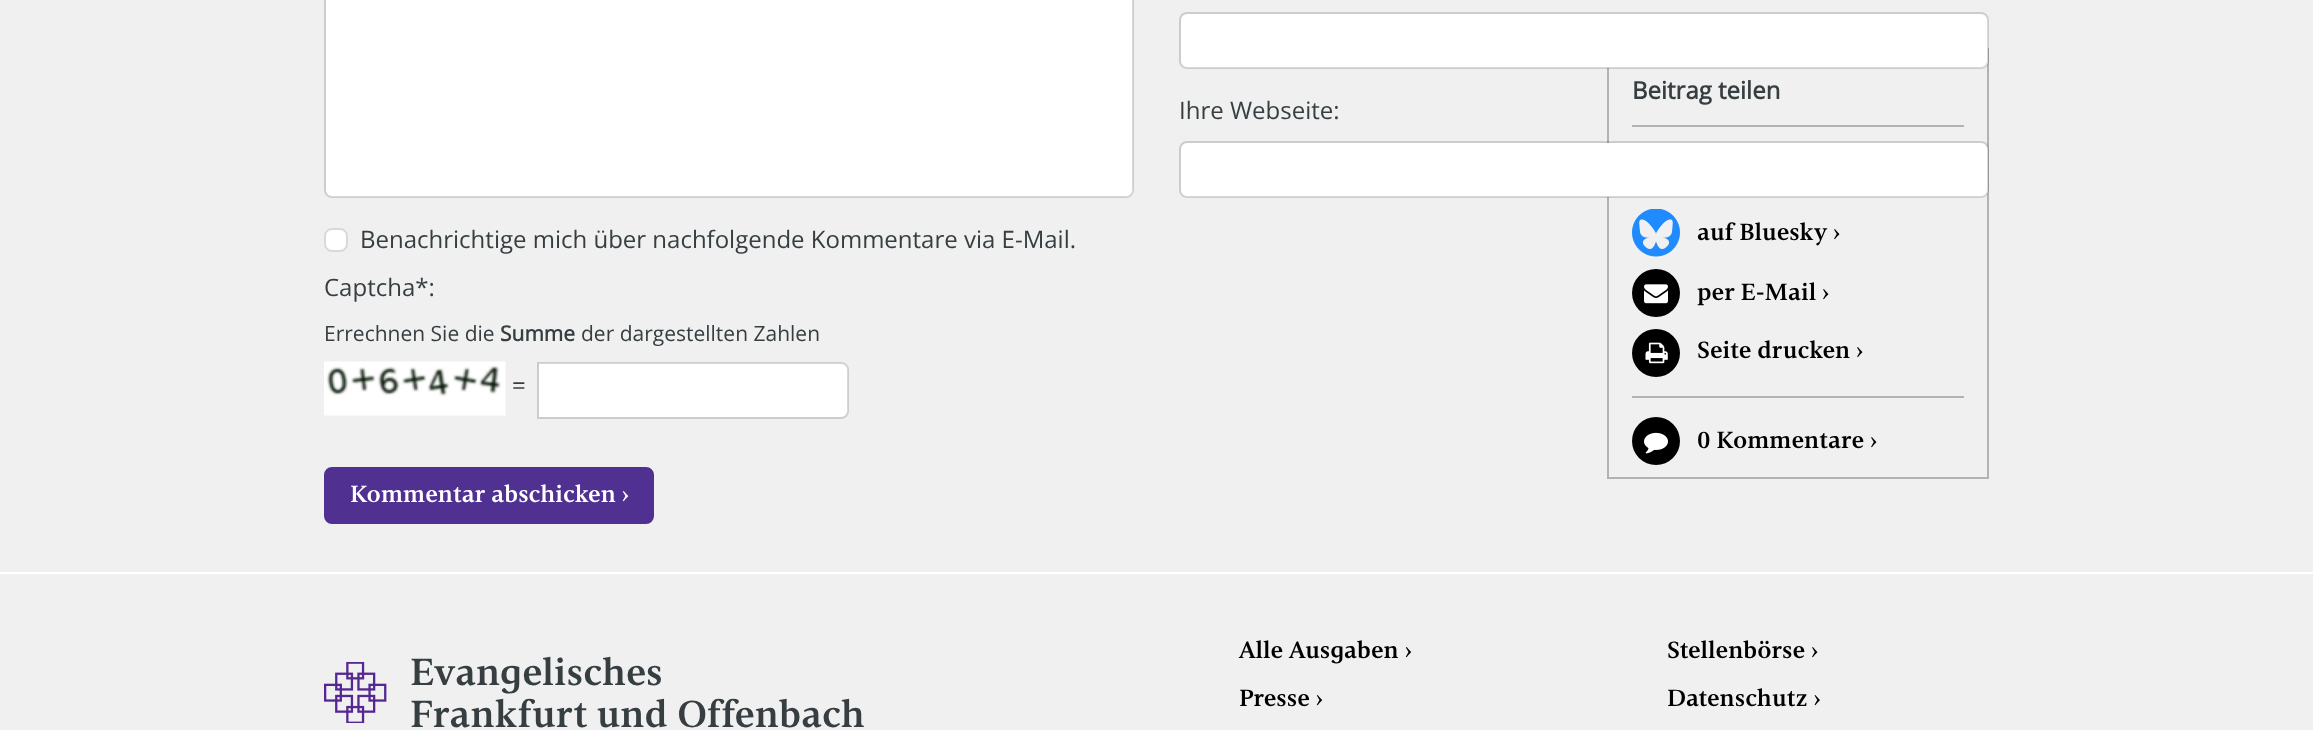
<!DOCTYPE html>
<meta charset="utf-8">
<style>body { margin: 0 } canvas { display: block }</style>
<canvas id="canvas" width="2313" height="730"></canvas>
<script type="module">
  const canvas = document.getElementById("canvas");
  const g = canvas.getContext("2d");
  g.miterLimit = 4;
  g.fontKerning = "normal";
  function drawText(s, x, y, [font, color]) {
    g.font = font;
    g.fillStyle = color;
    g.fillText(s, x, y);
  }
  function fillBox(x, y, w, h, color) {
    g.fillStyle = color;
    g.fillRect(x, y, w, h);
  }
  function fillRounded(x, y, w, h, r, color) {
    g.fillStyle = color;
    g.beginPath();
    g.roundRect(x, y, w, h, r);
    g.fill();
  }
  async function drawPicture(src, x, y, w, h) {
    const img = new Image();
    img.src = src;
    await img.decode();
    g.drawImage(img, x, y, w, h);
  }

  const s1 = ["24px Open Sans", "#363E41"];
  const s2 = ["21px Open Sans", "#363E41"];
  const s3 = ["bold 21px Open Sans", "#363E41"];
  const s4 = ["600 24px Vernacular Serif", "#FFFFFF"];
  const s5 = ["bold 24px Open Sans", "#363E41"];
  const s6 = ["600 24px Vernacular Serif", "#000000"];
  const s7 = ["600 38.4px Vernacular Serif", "#363E41"];

  fillBox(0, 0, 2313, 730, "#F0F0F0");
  fillRounded(326, -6, 807, 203, 6, "#FFFFFF");
  g.beginPath();
  g.roundRect(325, -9, 808, 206, 7);
  g.strokeStyle = "rgba(0, 0, 0, 0.15)";
  g.lineWidth = 2;
  g.stroke();
  g.strokeStyle = "#B2B2B2";
  g.strokeRect(1608, 49, 380, 429);
  fillRounded(1181, 14, 807, 54, 6, "#FFFFFF");
  g.beginPath();
  g.roundRect(1180, 13, 808, 55, 7);
  g.strokeStyle = "rgba(0, 0, 0, 0.15)";
  g.stroke();
  drawText("Ihre Webseite:", 1179, 119, s1);
  fillRounded(1181, 143, 807, 54, 6, "#FFFFFF");
  g.beginPath();
  g.roundRect(1180, 142, 808, 55, 7);
  g.stroke();
  fillRounded(324, 228, 24, 24, 8, "#FFFFFF");
  g.beginPath();
  g.roundRect(325, 229, 22, 22, 7);
  g.stroke();
  drawText("Benachrichtige mich über nachfolgende Kommentare via E-Mail.", 360, 248, s1);
  drawText("Captcha*:", 324, 296, s1);
  drawText("Errechnen Sie die", 324, 341, s2);
  drawText("Summe", 500, 341, s3);
  drawText("der dargestellten Zahlen", 581, 341, s2);
  await drawPicture("pic1.png", 324, 361, 182, 55);
  drawText("=", 512, 394, s1);
  g.fillStyle = "#FFFFFF";
  g.beginPath();
  g.roundRect(539, 363, 309, 54, [0, 6, 6, 0]);
  g.fill();
  g.beginPath();
  g.roundRect(538, 363, 310, 55, [0, 7, 7, 0]);
  g.stroke();
  g.fillStyle = "#503191";
  g.beginPath();
  g.roundRect(325, 468, 328, 55, 7);
  g.fill();
  g.strokeStyle = "#503191";
  g.stroke();
  drawText("Kommentar abschicken ›", 350, 502, s4);
  drawText("Beitrag teilen", 1632, 99, s5);
  fillBox(1632, 125, 332, 2, "#B2B2B2");
  await drawPicture("pic2.png", 1632, 209, 48, 48);
  drawText("auf Bluesky ›", 1697, 240, s6);
  g.beginPath();
  g.arc(1656, 293, 24, 0, Math.PI * 2);
  g.fill();
  await drawPicture("pic3.png", 1644, 284, 24, 20);
  drawText("per E-Mail ›", 1697, 300, s6);
  g.beginPath();
  g.arc(1656, 353, 24, 0, Math.PI * 2);
  g.fill();
  await drawPicture("pic4.png", 1645, 342, 23, 22);
  drawText("Seite drucken ›", 1697, 358, s6);
  fillBox(1632, 396, 332, 2, "#B2B2B2");
  g.fillStyle = "#000000";
  g.beginPath();
  g.arc(1656, 441, 24, 0, Math.PI * 2);
  g.fill();
  await drawPicture("pic5.png", 1644, 432, 24, 22);
  drawText("0 Kommentare ›", 1697, 448, s6);
  fillBox(0, 572, 2313, 2, "#FFFFFF");
  await drawPicture("pic6.png", 324, 662, 63, 61);
  drawText("Evangelisches", 410, 685, s7);
  drawText("Frankfurt und Offenbach", 410, 727, s7);
  drawText("Alle Ausgaben ›", 1239, 658, s6);
  drawText("Presse ›", 1239, 706, s6);
  drawText("Stellenbörse ›", 1667, 658, s6);
  drawText("Datenschutz ›", 1667, 706, s6);
</script>
